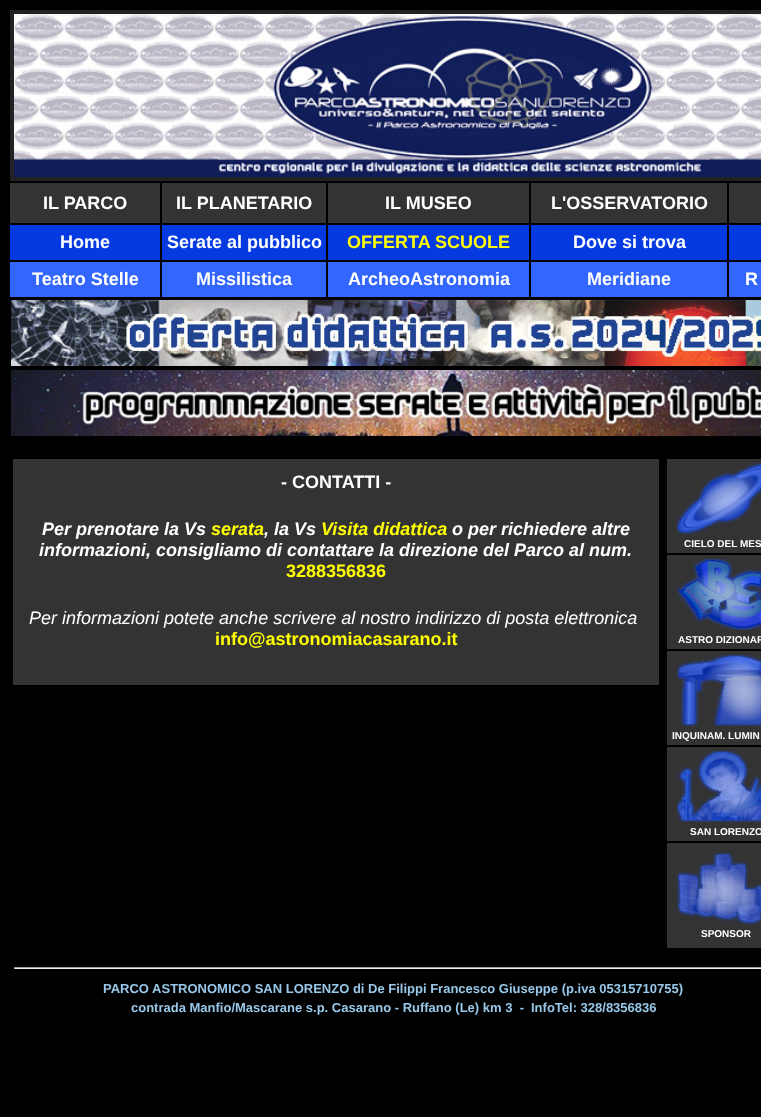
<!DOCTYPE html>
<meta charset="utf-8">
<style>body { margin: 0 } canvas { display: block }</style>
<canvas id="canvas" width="761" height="1117"></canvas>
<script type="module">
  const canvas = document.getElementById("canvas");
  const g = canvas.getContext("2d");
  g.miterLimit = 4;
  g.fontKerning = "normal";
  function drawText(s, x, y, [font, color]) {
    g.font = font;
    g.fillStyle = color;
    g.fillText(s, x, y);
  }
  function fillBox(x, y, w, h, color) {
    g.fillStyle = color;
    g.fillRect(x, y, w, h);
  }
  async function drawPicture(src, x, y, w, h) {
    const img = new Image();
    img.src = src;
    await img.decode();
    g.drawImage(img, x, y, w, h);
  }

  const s1 = ["bold 18px Liberation Sans", "#FFFFFF"];
  const s2 = ["bold 18px Liberation Sans", "#FFFF00"];
  const s3 = ["italic bold 18px Liberation Sans", "#FFFFFF"];
  const s4 = ["italic bold 18px Liberation Sans", "#FFFF00"];
  const s5 = ["italic 18px Liberation Sans", "#FFFFFF"];
  const s6 = ["bold 10px Liberation Sans", "#FFFFFF"];
  const s7 = ["bold 13px Liberation Sans", "#98C8E9"];

  fillBox(0, 0, 761, 1117, "#000000");
  fillBox(10, 10, 751, 171, "#222222");
  await drawPicture("pic1.png", 14, 14, 747, 163);
  fillBox(10, 183, 150, 40, "#333333");
  drawText("IL PARCO", 43, 209, s1);
  fillBox(162, 183, 164, 40, "#333333");
  drawText("IL PLANETARIO", 176, 209, s1);
  fillBox(328, 183, 201, 40, "#333333");
  drawText("IL MUSEO", 385, 209, s1);
  fillBox(531, 183, 196, 40, "#333333");
  drawText("L'OSSERVATORIO", 551, 209, s1);
  fillBox(729, 183, 32, 40, "#333333");
  fillBox(10, 225, 150, 35, "#063AE1");
  drawText("Home", 60, 248, s1);
  fillBox(162, 225, 164, 35, "#063AE1");
  drawText("Serate al pubblico", 167, 248, s1);
  fillBox(328, 225, 201, 35, "#063AE1");
  drawText("OFFERTA", 347, 248, s2);
  drawText("SCUOLE", 435, 248, s2);
  fillBox(531, 225, 196, 35, "#063AE1");
  drawText("Dove si trova", 573, 248, s1);
  fillBox(729, 225, 32, 35, "#063AE1");
  fillBox(10, 262, 150, 35, "#3366FF");
  drawText("Teatro Stelle", 32, 285, s1);
  fillBox(162, 262, 164, 35, "#3366FF");
  drawText("Missilistica", 196, 285, s1);
  fillBox(328, 262, 201, 35, "#3366FF");
  drawText("ArcheoAstronomia", 348, 285, s1);
  fillBox(531, 262, 196, 35, "#3366FF");
  drawText("Meridiane", 587, 285, s1);
  fillBox(729, 262, 32, 35, "#3366FF");
  drawText("R", 745, 285, s1);
  await drawPicture("pic2.png", 11, 300, 750, 66);
  await drawPicture("pic3.png", 11, 370, 750, 66);
  fillBox(13, 459, 646, 226, "#333333");
  drawText("- CONTATTI -", 281, 488, s1);
  drawText("Per prenotare la Vs", 42, 535, s3);
  drawText("serata", 211, 535, s4);
  drawText(", la Vs", 264, 535, s3);
  drawText("Visita didattica", 321, 535, s4);
  drawText("o per richiedere altre", 452, 535, s3);
  drawText("informazioni, consigliamo di contattare la direzione del Parco al num.", 39, 556, s3);
  drawText("3288356836", 286, 577, s2);
  drawText("Per informazioni potete anche scrivere al nostro indirizzo di posta elettronica", 29, 624, s5);
  drawText("info@astronomiacasarano.it", 215, 645, s2);
  fillBox(667, 459, 94, 94, "#333333");
  await drawPicture("pic4.png", 677, 463, 84, 71);
  drawText("CIELO DEL MES", 684, 547, s6);
  fillBox(667, 555, 94, 94, "#333333");
  await drawPicture("pic5.png", 677, 559, 84, 71);
  drawText("ASTRO DIZIONAR", 678, 643, s6);
  fillBox(667, 651, 94, 94, "#333333");
  await drawPicture("pic6.png", 677, 655, 84, 71);
  drawText("INQUINAM. LUMIN", 672, 739, s6);
  fillBox(667, 747, 94, 94, "#333333");
  await drawPicture("pic7.png", 677, 751, 84, 71);
  drawText("SAN LORENZO", 690, 835, s6);
  fillBox(667, 843, 94, 105, "#333333");
  await drawPicture("pic8.png", 677, 853, 84, 71);
  drawText("SPONSOR", 701, 937, s6);
  fillBox(14, 967, 747, 1, "#9F9F9F");
  fillBox(14, 968, 747, 1, "#EEEEEE");
  fillBox(14, 967, 1, 2, "#9F9F9F");
  drawText("PARCO ASTRONOMICO SAN LORENZO di De Filippi Francesco Giuseppe (p.iva 05315710755)", 103, 993, s7);
  drawText("contrada Manfio/Mascarane s.p. Casarano - Ruffano (Le) km 3  -", 131, 1012, s7);
  drawText("InfoTel: 328/8356836", 531, 1012, s7);
</script>
